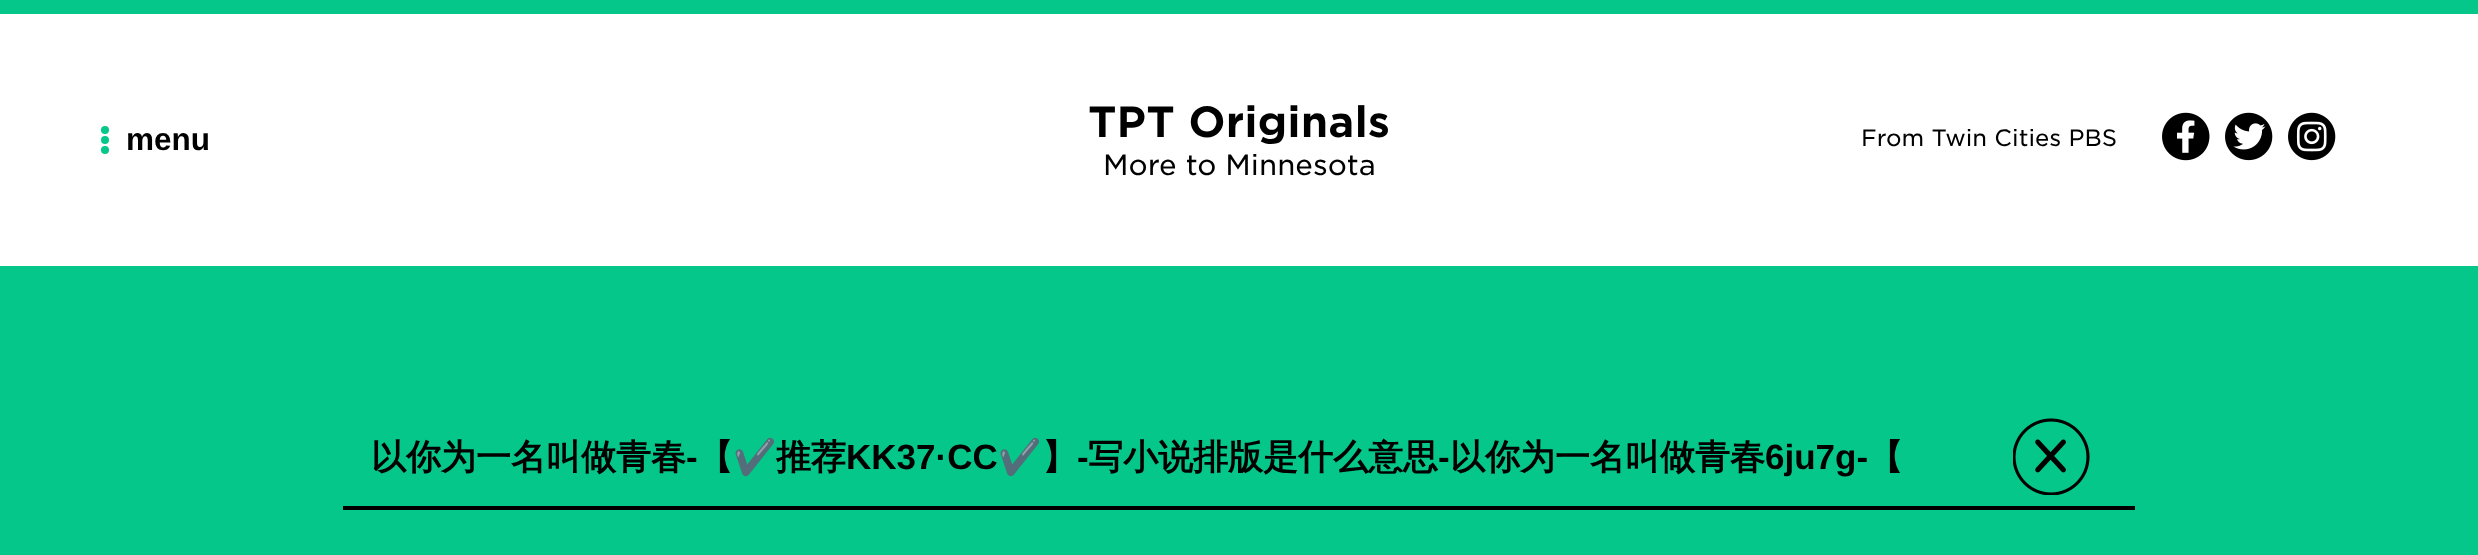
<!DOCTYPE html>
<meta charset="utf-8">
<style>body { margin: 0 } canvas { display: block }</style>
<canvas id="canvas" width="2478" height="555"></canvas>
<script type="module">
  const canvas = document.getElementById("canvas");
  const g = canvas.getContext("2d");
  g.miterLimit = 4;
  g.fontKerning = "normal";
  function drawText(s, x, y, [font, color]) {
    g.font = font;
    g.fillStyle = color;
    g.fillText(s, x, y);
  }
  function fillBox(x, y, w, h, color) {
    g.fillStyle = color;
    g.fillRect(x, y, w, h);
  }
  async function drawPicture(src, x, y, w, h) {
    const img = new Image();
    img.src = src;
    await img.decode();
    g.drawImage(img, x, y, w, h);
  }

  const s1 = ["bold 31.5px Liberation Sans", "#000000"];
  const s2 = ["42px 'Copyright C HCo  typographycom'", "#000000"];
  const s3 = ["300 28px 'Copyright C HCo  typographycom'", "#000000"];
  const s4 = ["300 22.75px 'Copyright C HCo  typographycom'", "#000000"];
  const s5 = ["bold 35px WenQuanYi Zen Hei", "#000000"];
  const s6 = ["bold 35px Liberation Sans", "#000000"];
  const s7 = ["bold 35px Noto Color Emoji", "#000000"];

  fillBox(0, 0, 2478, 555, "#FFFFFF");
  fillBox(0, 0, 2478, 14, "#05C789");
  g.beginPath();
  g.arc(105, 130, 4, 0, Math.PI * 2);
  g.fill();
  g.beginPath();
  g.arc(105, 140, 4, 0, Math.PI * 2);
  g.fill();
  g.beginPath();
  g.arc(105, 150, 4, 0, Math.PI * 2);
  g.fill();
  drawText("menu", 126, 150, s1);
  drawText("TPT Originals", 1088, 137, s2);
  drawText("More to Minnesota", 1103, 175, s3);
  drawText("From Twin Cities PBS", 1861, 146, s4);
  await drawPicture("pic1.png", 2162, 112, 48, 49);
  await drawPicture("pic2.png", 2225, 112, 48, 49);
  await drawPicture("pic3.png", 2288, 112, 48, 49);
  fillBox(0, 266, 2478, 289, "#05C789");
  fillBox(343, 506, 1792, 4, "#000000");
  drawText("以你为一名叫做青春", 371, 469, s5);
  drawText("-", 686, 469, s6);
  drawText("【", 698, 469, s5);
  drawText("✔️", 733, 469, s7);
  drawText("推荐", 776, 469, s5);
  drawText("KK37·CC", 846, 469, s6);
  drawText("✔️", 998, 469, s7);
  drawText("】", 1042, 469, s5);
  drawText("-", 1077, 469, s6);
  drawText("写小说排版是什么意思", 1088, 469, s5);
  drawText("-", 1438, 469, s6);
  drawText("以你为一名叫做青春", 1450, 469, s5);
  drawText("6ju7g-", 1765, 469, s6);
  drawText("【", 1868, 469, s5);
  await drawPicture("pic4.png", 2013, 418, 77, 77);
</script>
